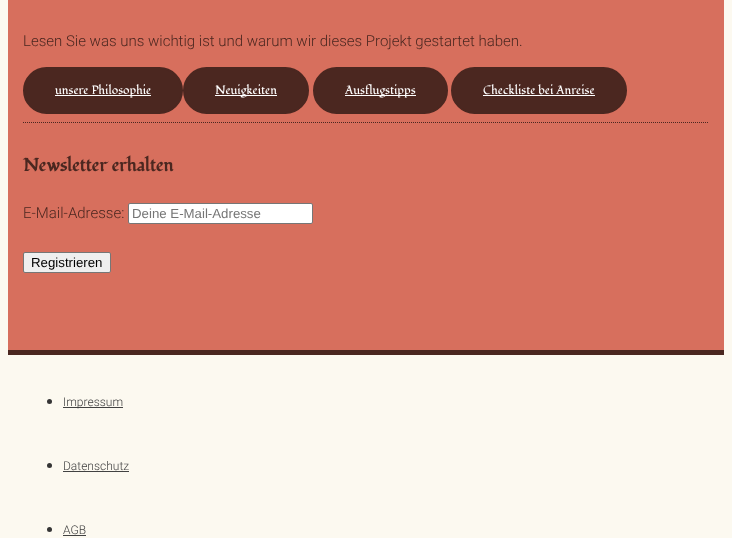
<!DOCTYPE html>
<meta charset="utf-8">
<style>body { margin: 0 } canvas { display: block }</style>
<canvas id="canvas" width="732" height="538"></canvas>
<script type="module">
  const canvas = document.getElementById("canvas");
  const g = canvas.getContext("2d");
  g.miterLimit = 4;
  g.fontKerning = "normal";
  function drawText(s, x, y, [font, color]) {
    g.font = font;
    g.fillStyle = color;
    g.fillText(s, x, y);
  }
  function fillBox(x, y, w, h, color) {
    g.fillStyle = color;
    g.fillRect(x, y, w, h);
  }

  const s1 = ["300 15px Roboto", "#4B2720"];
  const s2 = ["12px Fondamento", "#FFFFFF"];
  const s3 = ["bold 18px Fondamento", "#4B2720"];
  const s4 = ["13.25px Liberation Sans", "#757575"];
  const s5 = ["13.25px Liberation Sans", "#000000"];
  const s6 = ["300 12px Roboto", "#424242"];

  fillBox(0, 0, 732, 538, "#FCF9F0");
  fillBox(8, 0, 716, 350, "#D76F5D");
  fillBox(8, 350, 716, 5, "#4B2720");
  drawText("Lesen Sie was uns wichtig ist und warum wir dieses Projekt gestartet haben.", 23, 46, s1);
  g.beginPath();
  g.roundRect(24, 68, 158, 45, 22.5);
  g.fill();
  g.strokeStyle = "#4B2720";
  g.lineWidth = 2;
  g.stroke();
  fillBox(55, 95, 96, 1, "#FFFFFF");
  drawText("unsere Philosophie", 55, 94, s2);
  g.fillStyle = "#4B2720";
  g.beginPath();
  g.roundRect(184, 68, 124, 45, 22.5);
  g.fill();
  g.stroke();
  fillBox(215, 95, 62, 1, "#FFFFFF");
  drawText("Neuigkeiten", 215, 94, s2);
  g.fillStyle = "#4B2720";
  g.beginPath();
  g.roundRect(314, 68, 133, 45, 22.5);
  g.fill();
  g.stroke();
  fillBox(345, 95, 71, 1, "#FFFFFF");
  drawText("Ausflugstipps", 345, 94, s2);
  g.fillStyle = "#4B2720";
  g.beginPath();
  g.roundRect(452, 68, 174, 45, 22.5);
  g.fill();
  g.stroke();
  drawText("Checkliste bei Anreise", 483, 94, s2);
  fillBox(483, 95, 112, 1, "#FFFFFF");
  g.beginPath();
  g.moveTo(23, 122.5);
  g.lineTo(709, 122.5);
  g.lineWidth = 1;
  g.setLineDash([1, 1]);
  g.stroke();
  drawText("Newsletter erhalten", 23, 171, s3);
  drawText("E-Mail-Adresse:", 23, 218, s1);
  g.fillStyle = "#FFFFFF";
  g.beginPath();
  g.roundRect(128.5, 203.5, 184, 20, 1.5);
  g.fill();
  g.strokeStyle = "#767676";
  g.setLineDash([]);
  g.stroke();
  drawText("Deine E-Mail-Adresse", 132, 218, s4);
  g.fillStyle = "#EFEFEF";
  g.beginPath();
  g.roundRect(23.5, 252.5, 87, 20, 1.5);
  g.fill();
  g.stroke();
  drawText("Registrieren", 31, 267, s5);
  g.fillStyle = "#353535";
  g.beginPath();
  g.arc(49.5, 401.5, 2.5, 0, Math.PI * 2);
  g.fill();
  fillBox(63, 407, 60, 1, "#424242");
  drawText("Impressum", 63, 406, s6);
  g.fillStyle = "#353535";
  g.beginPath();
  g.arc(49.5, 465.5, 2.5, 0, Math.PI * 2);
  g.fill();
  drawText("Datenschutz", 63, 470, s6);
  fillBox(63, 471, 66, 1, "#424242");
  g.fillStyle = "#353535";
  g.beginPath();
  g.arc(49.5, 529.5, 2.5, 0, Math.PI * 2);
  g.fill();
  drawText("AGB", 63, 534, s6);
  fillBox(63, 535, 23, 1, "#424242");
</script>
